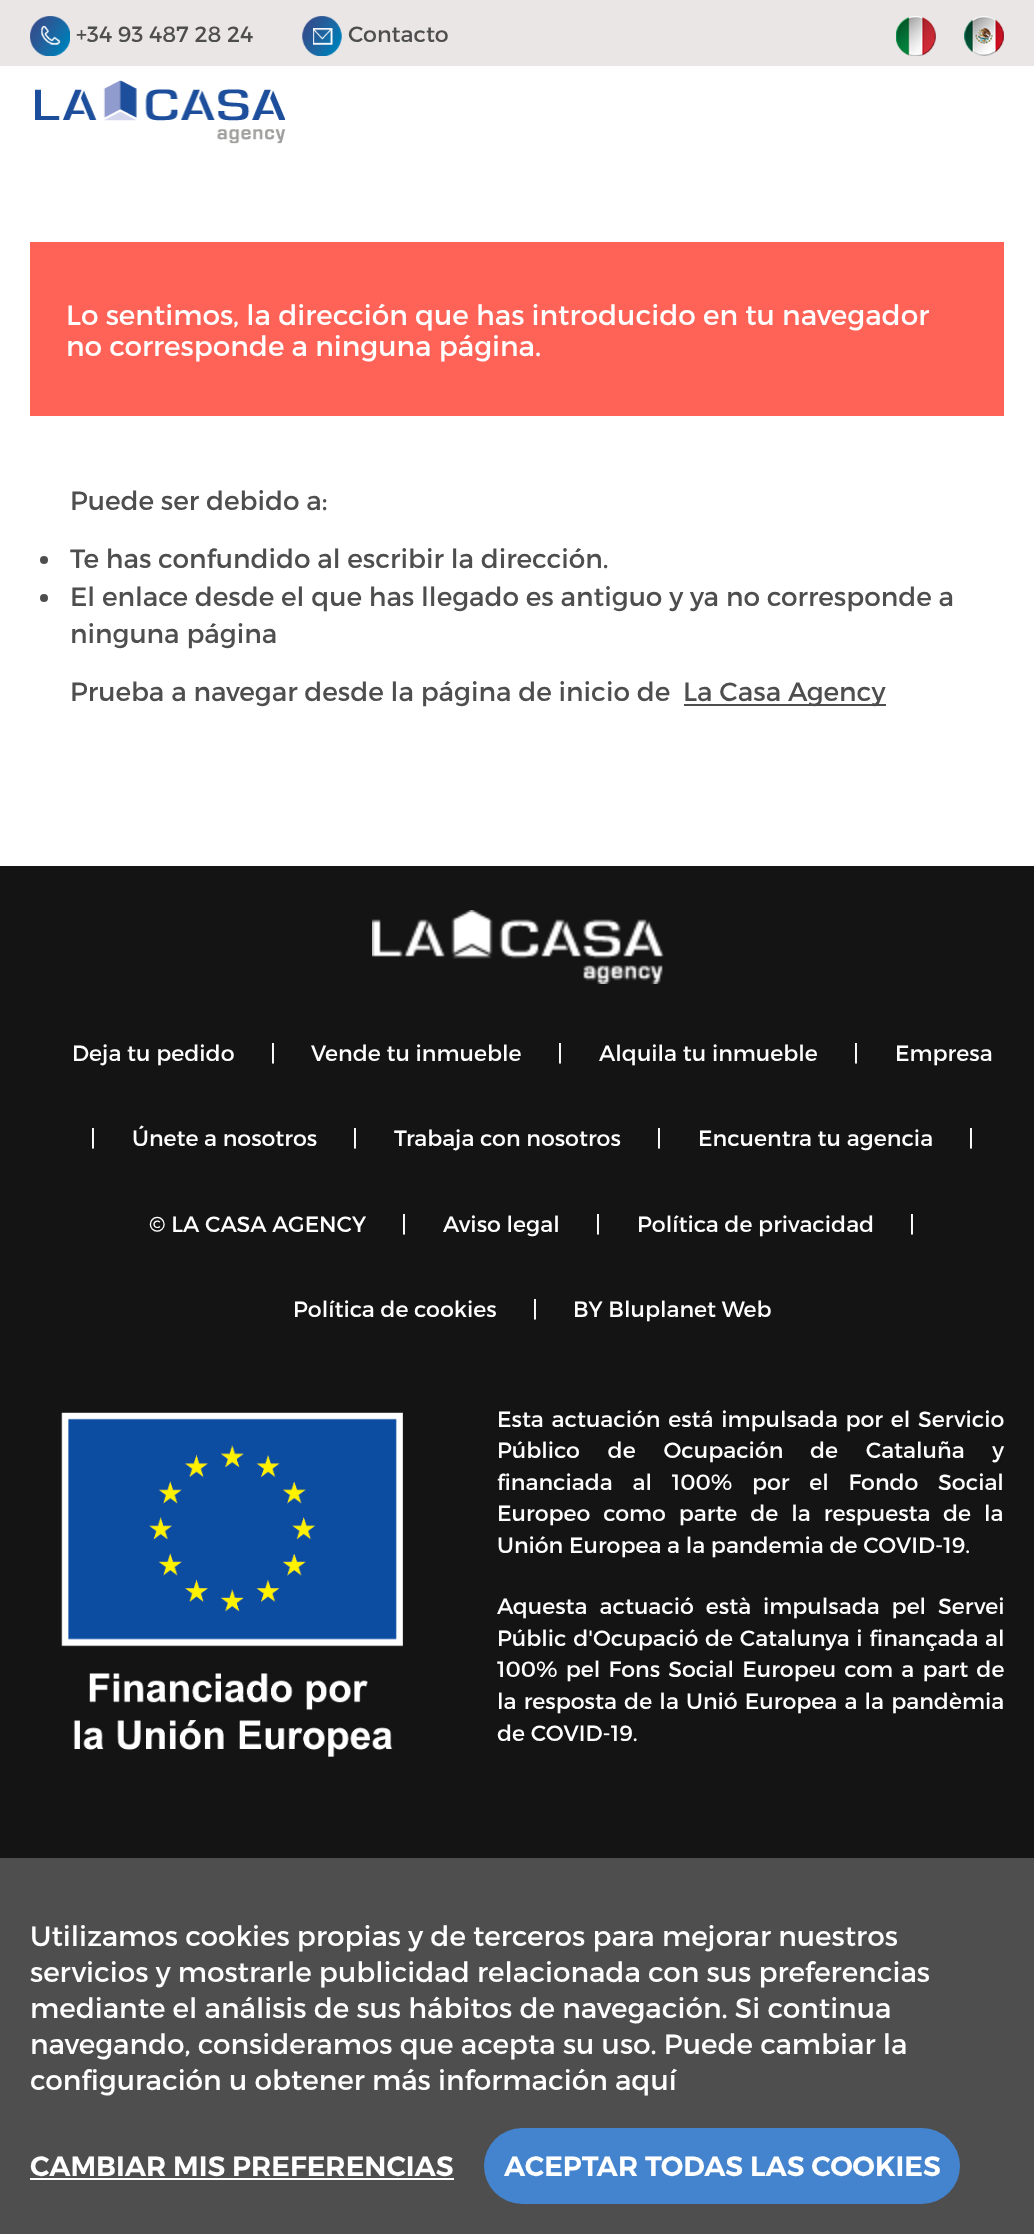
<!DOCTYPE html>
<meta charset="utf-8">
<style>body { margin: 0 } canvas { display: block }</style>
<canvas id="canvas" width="1034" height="2234"></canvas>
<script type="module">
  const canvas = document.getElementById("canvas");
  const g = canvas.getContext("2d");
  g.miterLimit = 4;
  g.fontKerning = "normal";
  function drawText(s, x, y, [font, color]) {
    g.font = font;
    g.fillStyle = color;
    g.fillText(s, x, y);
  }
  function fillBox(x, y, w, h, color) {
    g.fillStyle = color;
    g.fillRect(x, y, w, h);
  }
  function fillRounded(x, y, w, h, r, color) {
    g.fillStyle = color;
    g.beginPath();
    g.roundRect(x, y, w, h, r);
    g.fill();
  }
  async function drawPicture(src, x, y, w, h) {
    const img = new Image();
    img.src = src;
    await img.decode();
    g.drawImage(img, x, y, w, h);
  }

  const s1 = ["22.1px Montserrat", "#4E4E4E"];
  const s2 = ["28px Montserrat", "#FFFFFF"];
  const s3 = ["26.4px Montserrat", "#4E4E4E"];
  const s4 = ["22.1px Montserrat", "#FFFFFF"];
  const s5 = ["600 28px Montserrat", "#FFFFFF"];

  fillBox(0, 0, 1034, 2234, "#141414");
  fillBox(0, 0, 1034, 66, "#EAE6E6");
  await drawPicture("pic1.png", 30, 16, 40, 40);
  drawText("+34 93 487 28 24", 76, 42, s1);
  await drawPicture("pic2.png", 302, 16, 40, 40);
  drawText("Contacto", 348, 42, s1);
  await drawPicture("pic3.png", 896, 16, 40, 40);
  await drawPicture("pic4.png", 964, 16, 40, 40);
  fillBox(0, 66, 1034, 800, "#FFFFFF");
  await drawPicture("pic5.png", 35, 80, 251, 64);
  fillBox(30, 242, 974, 174, "#FF6358");
  drawText("Lo sentimos, la dirección que has introducido en tu navegador", 66, 325, s2);
  drawText("no corresponde a ninguna página.", 66, 356, s2);
  drawText("Puede ser debido a:", 70, 510, s3);
  g.beginPath();
  g.arc(44, 560, 4, 0, Math.PI * 2);
  g.fill();
  drawText("Te has confundido al escribir la dirección.", 70, 568, s3);
  g.beginPath();
  g.arc(44, 598, 4, 0, Math.PI * 2);
  g.fill();
  drawText("El enlace desde el que has llegado es antiguo y ya no corresponde a", 70, 606, s3);
  drawText("ninguna página", 70, 643, s3);
  drawText("Prueba a navegar desde la página de inicio de", 70, 701, s3);
  fillBox(684, 704, 202, 2, "#4E4E4E");
  drawText("La Casa Agency", 683, 701, s3);
  await drawPicture("pic6.png", 372, 910, 292, 74);
  drawText("Deja tu pedido", 72, 1061, s4);
  drawText("|", 270, 1061, s4);
  drawText("Vende tu inmueble", 311, 1061, s4);
  drawText("|", 557, 1061, s4);
  drawText("Alquila tu inmueble", 599, 1061, s4);
  drawText("|", 853, 1061, s4);
  drawText("Empresa", 895, 1061, s4);
  drawText("|", 90, 1146, s4);
  drawText("Únete a nosotros", 132, 1146, s4);
  drawText("|", 352, 1146, s4);
  drawText("Trabaja con nosotros", 394, 1146, s4);
  drawText("|", 656, 1146, s4);
  drawText("Encuentra tu agencia", 698, 1146, s4);
  drawText("|", 968, 1146, s4);
  drawText("© LA CASA AGENCY", 149, 1232, s4);
  drawText("|", 401, 1232, s4);
  drawText("Aviso legal", 443, 1232, s4);
  drawText("|", 595, 1232, s4);
  drawText("Política de privacidad", 637, 1232, s4);
  drawText("|", 909, 1232, s4);
  drawText("Política de cookies", 293, 1317, s4);
  drawText("|", 532, 1317, s4);
  drawText("BY Bluplanet Web", 573, 1317, s4);
  await drawPicture("pic7.png", 61, 1412, 342, 345);
  g.wordSpacing = "2px";
  drawText("Esta actuación está impulsada por el Servicio", 497, 1427, s4);
  g.wordSpacing = "22px";
  drawText("Público de Ocupación", 497, 1458, s4);
  drawText("de Cataluña y", 810, 1458, s4);
  g.wordSpacing = "14px";
  drawText("financiada al 100% por el Fondo Social", 497, 1490, s4);
  g.wordSpacing = "7.25px";
  drawText("Europeo como parte de la respuesta", 497, 1521, s4);
  drawText("de la", 943, 1521, s4);
  g.wordSpacing = "0px";
  drawText("Unión Europea a la pandemia de COVID-19.", 497, 1553, s4);
  g.wordSpacing = "6.25px";
  drawText("Aquesta actuació està impulsada pel Servei", 497, 1614, s4);
  g.wordSpacing = "1px";
  drawText("Públic d'Ocupació", 497, 1646, s4);
  drawText("de Catalunya i finançada al", 705, 1646, s4);
  g.wordSpacing = "2.5px";
  drawText("100% pel Fons Social Europeu com a part de", 497, 1677, s4);
  g.wordSpacing = "1.5px";
  drawText("la resposta de la", 497, 1709, s4);
  drawText("Unió Europea a la pandèmia", 686, 1709, s4);
  g.wordSpacing = "0px";
  drawText("de COVID-19.", 497, 1741, s4);
  fillBox(0, 1858, 1034, 376, "#4E4E4E");
  drawText("Utilizamos cookies propias y de terceros para mejorar nuestros", 30, 1946, s2);
  drawText("servicios y mostrarle publicidad relacionada con sus preferencias", 30, 1982, s2);
  drawText("mediante el análisis de sus hábitos de navegación. Si continua", 30, 2018, s2);
  drawText("navegando, consideramos que acepta su uso. Puede cambiar la", 30, 2054, s2);
  drawText("configuración u obtener más información aquí", 30, 2090, s2);
  drawText("CAMBIAR MIS PREFERENCIAS", 30, 2176, s5);
  fillBox(30, 2178, 424, 2, "#FFFFFF");
  fillRounded(484, 2128, 476, 76, 38, "#4484CE");
  drawText("ACEPTAR TODAS LAS COOKIES", 504, 2176, s5);
</script>
